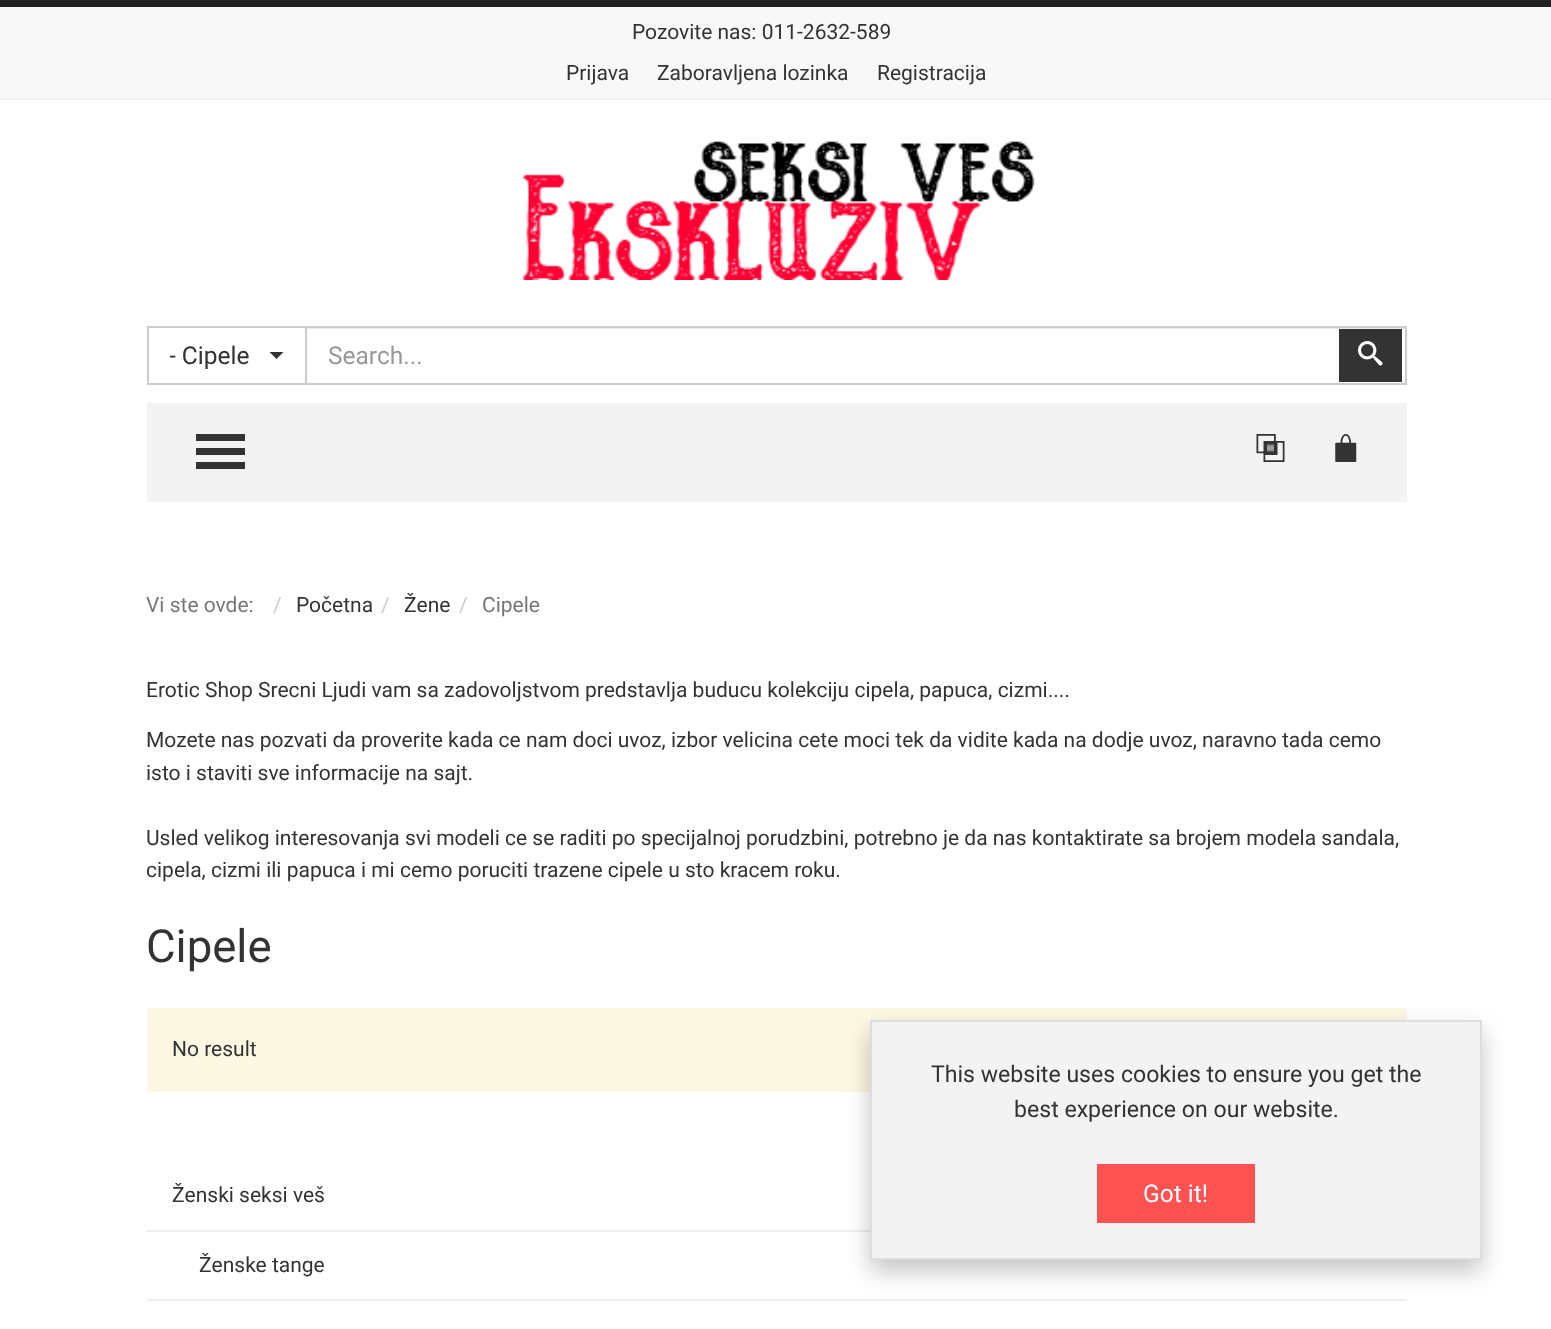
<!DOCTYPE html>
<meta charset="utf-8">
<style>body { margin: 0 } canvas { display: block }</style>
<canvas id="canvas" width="1551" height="1329"></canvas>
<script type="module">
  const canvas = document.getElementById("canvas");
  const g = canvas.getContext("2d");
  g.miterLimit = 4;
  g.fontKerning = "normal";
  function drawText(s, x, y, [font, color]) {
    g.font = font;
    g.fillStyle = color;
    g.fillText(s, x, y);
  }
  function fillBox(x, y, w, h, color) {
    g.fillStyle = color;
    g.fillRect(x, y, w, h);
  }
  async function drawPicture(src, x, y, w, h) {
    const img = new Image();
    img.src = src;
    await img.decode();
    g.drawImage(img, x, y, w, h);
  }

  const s1 = ["21px Roboto", "#333333"];
  const s2 = ["24.5px Roboto", "#333333"];
  const s3 = ["24.5px Roboto", "#999999"];
  const s4 = ["21px Roboto", "#777777"];
  const s5 = ["21px Roboto", "#CCCCCC"];
  const s6 = ["45.5px Roboto", "#333333"];
  const s7 = ["23.1px Roboto", "#333333"];
  const s8 = ["24.5px Roboto", "#FFFFFF"];

  fillBox(0, 0, 1551, 1329, "#FFFFFF");
  fillBox(0, 7, 1551, 91, "#F8F8F8");
  fillBox(0, 0, 1551, 7, "#222222");
  fillBox(0, 98, 1551, 2, "#EEEEEE");
  drawText("Pozovite nas: 011-2632-589", 632, 39, s1);
  drawText("Prijava", 566, 80, s1);
  drawText("Zaboravljena lozinka", 657, 80, s1);
  drawText("Registracija", 877, 80, s1);
  await drawPicture("pic1.png", 522, 141, 513, 139);
  fillBox(147, 326, 158, 2, "#CCCCCC");
  fillBox(147, 383, 158, 2, "#CCCCCC");
  fillBox(147, 326, 2, 59, "#CCCCCC");
  g.save();
  g.beginPath();
  g.rect(170, 338, 91, 35);
  g.clip();
  drawText("- Cipele", 169, 364, s2);
  g.restore();
  g.fillStyle = "#333333";
  g.beginPath();
  g.moveTo(269.5, 352);
  g.lineTo(283.5, 352);
  g.lineTo(276.5, 359);
  g.closePath();
  g.fill();
  fillBox(306, 328, 1099, 1, "#ECECEC");
  g.strokeStyle = "#CCCCCC";
  g.lineWidth = 2;
  g.strokeRect(306, 327, 1100, 57);
  drawText("Search...", 328, 364, s3);
  fillBox(1339, 329, 63, 53, "#333333");
  await drawPicture("pic2.png", 1358, 341, 25, 25);
  fillBox(147, 403, 1260, 99, "#F3F3F3");
  g.fillStyle = "#333333";
  g.beginPath();
  g.moveTo(196, 434);
  g.lineTo(245, 434);
  g.lineTo(245, 441);
  g.lineTo(196, 441);
  g.closePath();
  g.moveTo(196, 448);
  g.lineTo(245, 448);
  g.lineTo(245, 455);
  g.lineTo(196, 455);
  g.closePath();
  g.moveTo(196, 462);
  g.lineTo(245, 462);
  g.lineTo(245, 469);
  g.lineTo(196, 469);
  g.closePath();
  g.fill();
  await drawPicture("pic3.png", 1256, 434, 29, 28);
  await drawPicture("pic4.png", 1335, 434, 22, 28);
  drawText("Vi ste ovde:", 146, 612, s4);
  drawText("/", 273, 612, s5);
  drawText("Početna", 296, 612, s1);
  drawText("/", 381, 612, s5);
  drawText("Žene", 404, 612, s1);
  drawText("/", 459, 612, s5);
  drawText("Cipele", 482, 612, s4);
  drawText("Erotic Shop Srecni Ljudi vam sa zadovoljstvom predstavlja buducu kolekciju cipela, papuca, cizmi....", 146, 697, s1);
  drawText("Mozete nas pozvati da proverite kada ce nam doci uvoz, izbor velicina cete moci tek da vidite kada na dodje uvoz, naravno tada cemo", 146, 747, s1);
  drawText("isto i staviti sve informacije na sajt.", 146, 780, s1);
  drawText("Usled velikog interesovanja svi modeli ce se raditi po specijalnoj porudzbini, potrebno je da nas kontaktirate sa brojem modela sandala,", 146, 845, s1);
  drawText("cipela, cizmi ili papuca i mi cemo poruciti trazene cipele u sto kracem roku.", 146, 877, s1);
  drawText("Cipele", 146, 962, s6);
  fillBox(147, 1008, 1260, 84, "#FCF8E3");
  drawText("No result", 172, 1056, s1);
  fillBox(147, 1230, 723, 2, "#EEEEEE");
  drawText("Ženski seksi veš", 172, 1202, s1);
  fillBox(147, 1299, 1260, 2, "#EEEEEE");
  drawText("Ženske tange", 199, 1272, s1);
  g.fillStyle = "rgba(0, 0, 0, 0.23)";
  g.filter = "blur(11.5px)";
  g.beginPath();
  g.rect(870, 1031, 612, 240);
  g.fill();
  g.filter = "none";
  g.fillStyle = "#F3F3F3";
  g.beginPath();
  g.rect(871, 1021, 610, 238);
  g.fill();
  g.strokeStyle = "#DDDDDD";
  g.stroke();
  drawText("This website uses cookies to ensure you get the", 931, 1082, s7);
  drawText("best experience on our website.", 1014, 1117, s7);
  fillBox(1097, 1164, 158, 59, "#FE5252");
  drawText("Got it!", 1143, 1202, s8);
</script>
